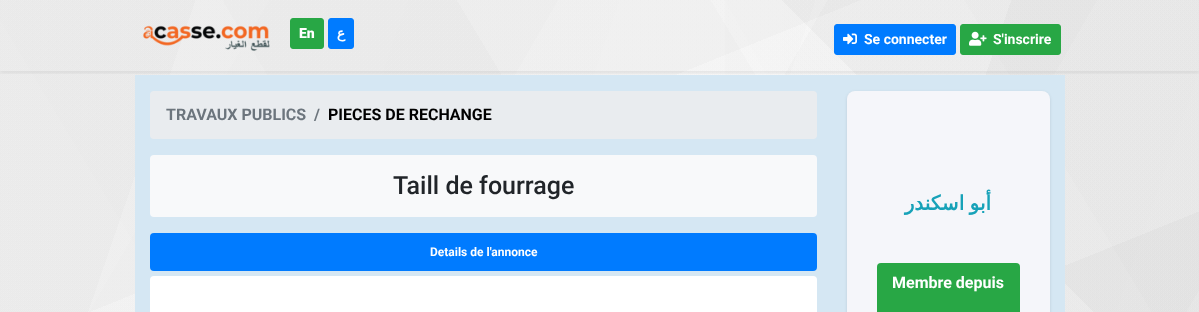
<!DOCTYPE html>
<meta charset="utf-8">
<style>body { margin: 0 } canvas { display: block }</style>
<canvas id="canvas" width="1199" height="312"></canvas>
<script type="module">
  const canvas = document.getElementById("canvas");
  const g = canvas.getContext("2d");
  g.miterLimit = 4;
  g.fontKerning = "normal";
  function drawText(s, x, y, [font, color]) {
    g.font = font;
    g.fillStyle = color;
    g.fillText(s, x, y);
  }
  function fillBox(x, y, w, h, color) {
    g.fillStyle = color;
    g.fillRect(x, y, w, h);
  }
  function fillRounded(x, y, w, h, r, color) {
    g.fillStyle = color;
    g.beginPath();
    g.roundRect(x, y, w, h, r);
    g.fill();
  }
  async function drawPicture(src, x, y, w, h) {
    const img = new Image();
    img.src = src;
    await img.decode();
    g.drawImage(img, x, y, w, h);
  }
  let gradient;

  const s1 = ["900 14px Roboto", "#FFFFFF"];
  const s2 = ["bold 14px DejaVu Sans", "#FFFFFF"];
  const s3 = ["bold 14px Roboto", "#FFFFFF"];
  const s4 = ["bold 16px Roboto", "#6C757D"];
  const s5 = ["bold 16px Roboto", "#000000"];
  const s6 = ["500 25px Roboto", "#212529"];
  const s7 = ["bold 12px Roboto", "#FFFFFF"];
  const s8 = ["bold 20px DejaVu Sans", "#17A2B8"];
  const s9 = ["bold 16px Roboto", "#FFFFFF"];

  fillBox(0, 0, 1199, 312, "#FFFFFF");
  gradient = g.createLinearGradient(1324, 226, -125, 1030);
  gradient.addColorStop(0, "#FCFCFC");
  gradient.addColorStop(0.25, "#FCFCFC");
  gradient.addColorStop(0.25, "#FDFDFD");
  gradient.addColorStop(0.5, "#FDFDFD");
  gradient.addColorStop(0.5, "#FFFFFF");
  gradient.addColorStop(0.75, "#FFFFFF");
  gradient.addColorStop(0.75, "#FCFCFC");
  gradient.addColorStop(1, "#FCFCFC");
  g.fillStyle = gradient;
  g.fillRect(725, 0, 474, 312);
  gradient = g.createLinearGradient(-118, 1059, 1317, 197);
  gradient.addColorStop(0, "rgba(224, 224, 224, 0.03)");
  gradient.addColorStop(0.12, "rgba(224, 224, 224, 0.03)");
  gradient.addColorStop(0.12, "rgba(97, 97, 97, 0.03)");
  gradient.addColorStop(0.25, "rgba(97, 97, 97, 0.03)");
  gradient.addColorStop(0.25, "rgba(143, 143, 143, 0.03)");
  gradient.addColorStop(0.38, "rgba(143, 143, 143, 0.03)");
  gradient.addColorStop(0.38, "rgba(110, 110, 110, 0.03)");
  gradient.addColorStop(0.5, "rgba(110, 110, 110, 0.03)");
  gradient.addColorStop(0.5, "rgba(34, 34, 34, 0.03)");
  gradient.addColorStop(0.62, "rgba(34, 34, 34, 0.03)");
  gradient.addColorStop(0.62, "rgba(155, 155, 155, 0.03)");
  gradient.addColorStop(0.75, "rgba(155, 155, 155, 0.03)");
  gradient.addColorStop(0.75, "rgba(249, 249, 249, 0.03)");
  gradient.addColorStop(0.88, "rgba(249, 249, 249, 0.03)");
  gradient.addColorStop(0.88, "rgba(179, 179, 179, 0.03)");
  gradient.addColorStop(1, "rgba(179, 179, 179, 0.03)");
  g.fillStyle = gradient;
  g.fillRect(0, 0, 1199, 312);
  gradient = g.createLinearGradient(-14, 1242, 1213, 14);
  gradient.addColorStop(0, "rgba(214, 214, 214, 0.03)");
  gradient.addColorStop(0.17, "rgba(214, 214, 214, 0.03)");
  gradient.addColorStop(0.17, "rgba(255, 255, 255, 0.03)");
  gradient.addColorStop(0.33, "rgba(255, 255, 255, 0.03)");
  gradient.addColorStop(0.33, "rgba(250, 250, 250, 0.03)");
  gradient.addColorStop(0.5, "rgba(250, 250, 250, 0.03)");
  gradient.addColorStop(0.5, "rgba(231, 231, 231, 0.03)");
  gradient.addColorStop(0.67, "rgba(231, 231, 231, 0.03)");
  gradient.addColorStop(0.67, "rgba(241, 241, 241, 0.03)");
  gradient.addColorStop(0.83, "rgba(241, 241, 241, 0.03)");
  gradient.addColorStop(0.83, "rgba(31, 31, 31, 0.03)");
  gradient.addColorStop(1, "rgba(31, 31, 31, 0.03)");
  g.fillStyle = gradient;
  g.fillRect(782, 0, 417, 312);
  gradient = g.createLinearGradient(-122, 211, 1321, 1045);
  gradient.addColorStop(0, "rgba(106, 106, 106, 0.03)");
  gradient.addColorStop(0.14, "rgba(106, 106, 106, 0.03)");
  gradient.addColorStop(0.14, "rgba(67, 67, 67, 0.03)");
  gradient.addColorStop(0.29, "rgba(67, 67, 67, 0.03)");
  gradient.addColorStop(0.29, "rgba(134, 134, 134, 0.03)");
  gradient.addColorStop(0.43, "rgba(134, 134, 134, 0.03)");
  gradient.addColorStop(0.43, "rgba(19, 19, 19, 0.03)");
  gradient.addColorStop(0.57, "rgba(19, 19, 19, 0.03)");
  gradient.addColorStop(0.57, "rgba(101, 101, 101, 0.03)");
  gradient.addColorStop(0.71, "rgba(101, 101, 101, 0.03)");
  gradient.addColorStop(0.71, "rgba(205, 205, 205, 0.03)");
  gradient.addColorStop(0.86, "rgba(205, 205, 205, 0.03)");
  gradient.addColorStop(0.86, "rgba(53, 53, 53, 0.03)");
  gradient.addColorStop(1, "rgba(53, 53, 53, 0.03)");
  g.fillStyle = gradient;
  g.fillRect(0, 0, 1199, 312);
  gradient = g.createLinearGradient(-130, 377, 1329, 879);
  gradient.addColorStop(0, "rgba(33, 33, 33, 0.03)");
  gradient.addColorStop(0.12, "rgba(33, 33, 33, 0.03)");
  gradient.addColorStop(0.12, "rgba(147, 147, 147, 0.03)");
  gradient.addColorStop(0.25, "rgba(147, 147, 147, 0.03)");
  gradient.addColorStop(0.25, "rgba(131, 131, 131, 0.03)");
  gradient.addColorStop(0.38, "rgba(131, 131, 131, 0.03)");
  gradient.addColorStop(0.38, "rgba(151, 151, 151, 0.03)");
  gradient.addColorStop(0.5, "rgba(151, 151, 151, 0.03)");
  gradient.addColorStop(0.5, "rgba(211, 211, 211, 0.03)");
  gradient.addColorStop(0.62, "rgba(211, 211, 211, 0.03)");
  gradient.addColorStop(0.62, "rgba(39, 39, 39, 0.03)");
  gradient.addColorStop(0.75, "rgba(39, 39, 39, 0.03)");
  gradient.addColorStop(0.75, "rgba(55, 55, 55, 0.03)");
  gradient.addColorStop(0.88, "rgba(55, 55, 55, 0.03)");
  gradient.addColorStop(0.88, "rgba(82, 82, 82, 0.03)");
  gradient.addColorStop(1, "rgba(82, 82, 82, 0.03)");
  g.fillStyle = gradient;
  g.fillRect(0, 0, 1199, 312);
  gradient = g.createLinearGradient(297, -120, 902, 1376);
  gradient.addColorStop(0, "rgba(84, 84, 84, 0.03)");
  gradient.addColorStop(0.2, "rgba(84, 84, 84, 0.03)");
  gradient.addColorStop(0.2, "rgba(219, 219, 219, 0.03)");
  gradient.addColorStop(0.4, "rgba(219, 219, 219, 0.03)");
  gradient.addColorStop(0.4, "rgba(54, 54, 54, 0.03)");
  gradient.addColorStop(0.6, "rgba(54, 54, 54, 0.03)");
  gradient.addColorStop(0.6, "rgba(99, 99, 99, 0.03)");
  gradient.addColorStop(0.8, "rgba(99, 99, 99, 0.03)");
  gradient.addColorStop(0.8, "rgba(92, 92, 92, 0.03)");
  gradient.addColorStop(1, "rgba(92, 92, 92, 0.03)");
  g.fillStyle = gradient;
  g.fillRect(0, 0, 1199, 312);
  fillBox(135, 75, 930, 237, "#D5E7F3");
  g.save();
  g.beginPath();
  g.rect(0, 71, 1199, 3);
  g.clip();
  g.fillStyle = "rgba(0, 0, 0, 0.07)";
  g.filter = "blur(2px)";
  g.beginPath();
  g.rect(0, 2, 1199, 71);
  g.fill();
  g.filter = "none";
  g.restore();
  await drawPicture("pic1.png", 143, 25, 127, 26);
  g.fillStyle = "#28A745";
  g.beginPath();
  g.roundRect(290.5, 18.5, 33, 30, 2.5);
  g.fill();
  g.strokeStyle = "#28A745";
  g.stroke();
  drawText("En", 299, 38, s1);
  g.fillStyle = "#007BFF";
  g.beginPath();
  g.roundRect(328.5, 18.5, 25, 30, 2.5);
  g.fill();
  g.strokeStyle = "#007BFF";
  g.stroke();
  g.direction = "rtl";
  drawText("ع", 345, 38, s2);
  g.fillStyle = "#007BFF";
  g.beginPath();
  g.roundRect(834.5, 24.5, 121, 30, 2.5);
  g.fill();
  g.stroke();
  await drawPicture("pic2.png", 843, 33, 14, 12);
  g.direction = "ltr";
  drawText("Se connecter", 864, 44, s3);
  g.fillStyle = "#28A745";
  g.beginPath();
  g.roundRect(960.5, 24.5, 100, 30, 2.5);
  g.fill();
  g.strokeStyle = "#28A745";
  g.stroke();
  await drawPicture("pic3.png", 969, 31, 18, 15);
  drawText("S'inscrire", 993, 44, s3);
  fillRounded(150, 91, 667, 48, 4, "#E9ECEF");
  drawText("TRAVAUX PUBLICS", 166, 120, s4);
  drawText("/", 314, 120, s4);
  drawText("PIECES DE RECHANGE", 328, 120, s5);
  fillRounded(150, 155, 667, 62, 4, "#F8F9FA");
  drawText("Taill de fourrage", 393, 194, s6);
  fillRounded(150, 233, 667, 38, 4, "#007BFF");
  drawText("Details de l'annonce", 430, 256, s7);
  fillRounded(150, 276, 667, 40, 4, "#FFFFFF");
  g.fillStyle = "rgba(0, 0, 0, 0.1)";
  g.filter = "blur(1.5px)";
  g.beginPath();
  g.roundRect(847, 92, 203, 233, 8);
  g.fill();
  g.filter = "none";
  fillRounded(847, 91, 203, 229, 8, "#F5F6FA");
  g.wordSpacing = "-1px";
  g.direction = "rtl";
  drawText("أبو اسكندر", 991, 210, s8);
  fillRounded(877, 263, 143, 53, 4, "#28A745");
  g.wordSpacing = "0px";
  g.direction = "ltr";
  drawText("Membre depuis", 892, 288, s9);
</script>
